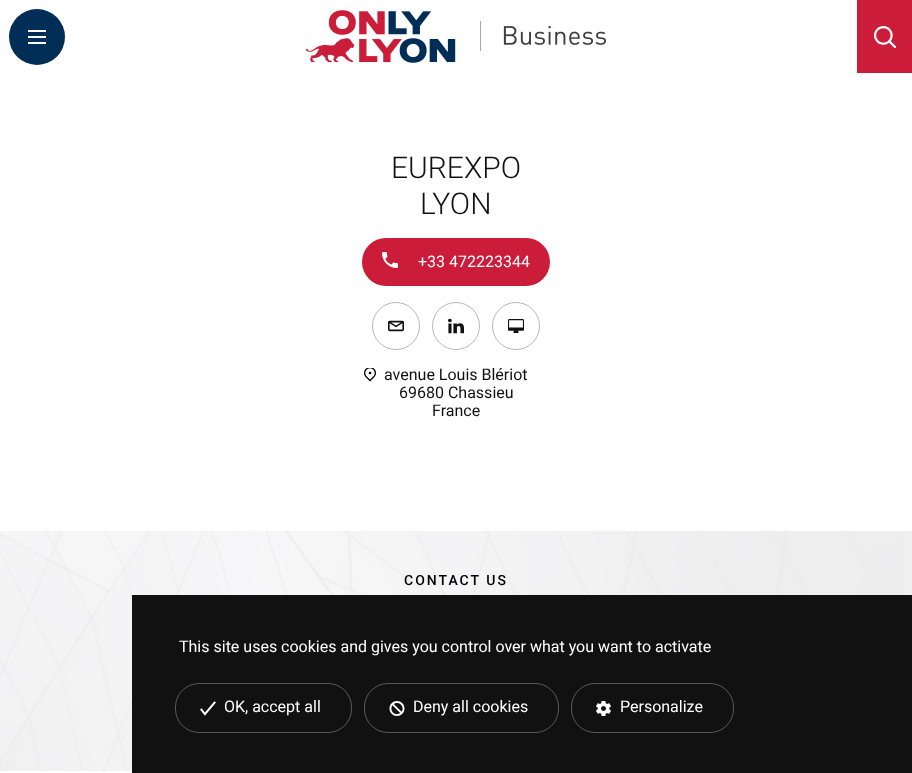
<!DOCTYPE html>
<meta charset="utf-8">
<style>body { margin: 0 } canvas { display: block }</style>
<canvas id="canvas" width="912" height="773"></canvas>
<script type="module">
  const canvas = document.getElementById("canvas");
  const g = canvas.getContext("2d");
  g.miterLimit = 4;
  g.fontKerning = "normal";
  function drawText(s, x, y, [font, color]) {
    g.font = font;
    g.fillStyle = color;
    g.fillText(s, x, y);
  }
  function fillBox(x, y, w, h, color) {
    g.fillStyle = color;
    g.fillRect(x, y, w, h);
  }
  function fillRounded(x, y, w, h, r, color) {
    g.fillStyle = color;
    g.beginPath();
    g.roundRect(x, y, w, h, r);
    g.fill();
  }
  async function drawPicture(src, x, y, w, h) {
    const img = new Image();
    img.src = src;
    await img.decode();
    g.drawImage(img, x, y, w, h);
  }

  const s1 = ["300 30px Roboto", "#111111"];
  const s2 = ["16px Roboto", "#FFFFFF"];
  const s3 = ["16px Roboto", "#111111"];
  const s4 = ["500 14px Roboto", "#000000"];

  fillBox(0, 0, 912, 773, "#FFFFFF");
  g.fillStyle = "#002E57";
  g.beginPath();
  g.arc(37, 37, 28, 0, Math.PI * 2);
  g.fill();
  await drawPicture("pic1.png", 28, 30, 18, 14);
  await drawPicture("pic2.png", 306, 10, 300, 53);
  fillBox(857, 0, 55, 73, "#CB1C39");
  await drawPicture("pic3.png", 874, 26, 22, 22);
  drawText("EUREXPO", 391, 178, s1);
  drawText("LYON", 420, 214, s1);
  fillRounded(362, 238, 188, 48, 24, "#CB1C39");
  await drawPicture("pic4.png", 382, 252, 16, 16);
  drawText("+33 472223344", 418, 267, s2);
  g.beginPath();
  g.arc(396, 326, 23.5, 0, Math.PI * 2);
  g.strokeStyle = "#B8B8B8";
  g.stroke();
  await drawPicture("pic5.png", 388, 320, 16, 12);
  g.beginPath();
  g.arc(456, 326, 23.5, 0, Math.PI * 2);
  g.stroke();
  await drawPicture("pic6.png", 448, 318, 16, 16);
  g.beginPath();
  g.arc(516, 326, 23.5, 0, Math.PI * 2);
  g.stroke();
  await drawPicture("pic7.png", 508, 319, 16, 14);
  await drawPicture("pic8.png", 364, 368, 12, 14);
  drawText("avenue Louis Blériot", 384, 380, s3);
  drawText("69680 Chassieu", 399, 398, s3);
  drawText("France", 432, 416, s3);
  fillBox(905, 531, 7, 64, "#F0F0F0");
  await drawPicture("pic9.png", 0, 531, 905, 240);
  g.letterSpacing = "2px";
  drawText("CONTACT US", 404, 585, s4);
  fillBox(132, 595, 780, 178, "#111111");
  g.letterSpacing = "0px";
  drawText("This site uses cookies and gives you control over what you want to activate", 179, 652, s2);
  g.beginPath();
  g.roundRect(175.5, 683.5, 176, 49, 23.5);
  g.strokeStyle = "#585858";
  g.stroke();
  await drawPicture("pic10.png", 200, 701, 16, 15);
  drawText("OK, accept all", 224, 712, s2);
  g.beginPath();
  g.roundRect(364.5, 683.5, 194, 49, 23.5);
  g.stroke();
  await drawPicture("pic11.png", 389, 701, 16, 15);
  drawText("Deny all cookies", 413, 712, s2);
  g.beginPath();
  g.roundRect(571.5, 683.5, 162, 49, 23.5);
  g.stroke();
  await drawPicture("pic12.png", 596, 701, 15, 15);
  drawText("Personalize", 620, 712, s2);
</script>
